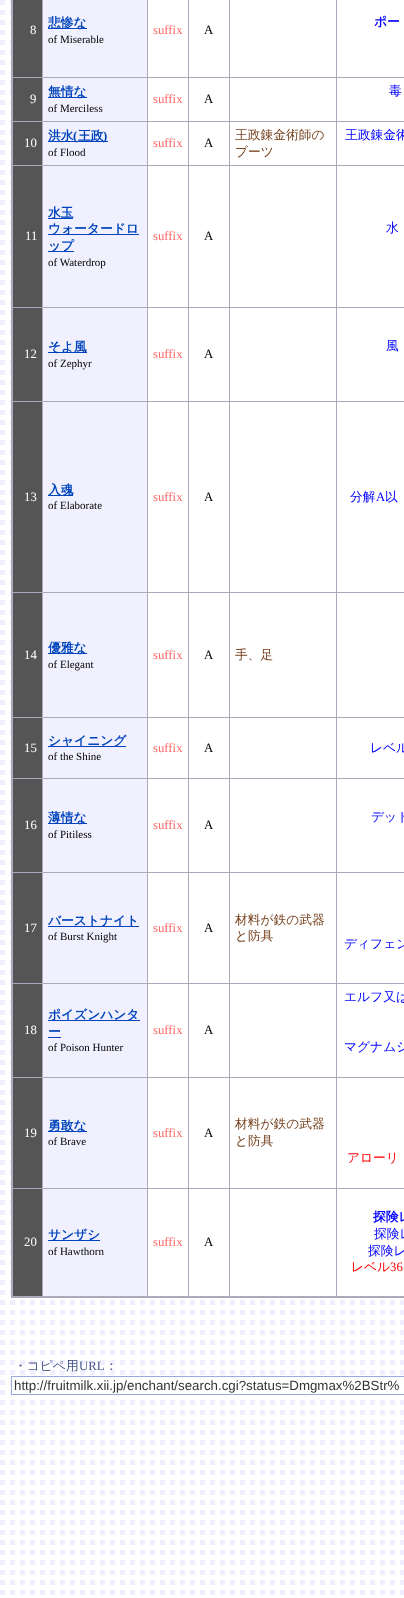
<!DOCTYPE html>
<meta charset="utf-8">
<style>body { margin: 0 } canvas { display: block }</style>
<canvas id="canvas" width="404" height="1598"></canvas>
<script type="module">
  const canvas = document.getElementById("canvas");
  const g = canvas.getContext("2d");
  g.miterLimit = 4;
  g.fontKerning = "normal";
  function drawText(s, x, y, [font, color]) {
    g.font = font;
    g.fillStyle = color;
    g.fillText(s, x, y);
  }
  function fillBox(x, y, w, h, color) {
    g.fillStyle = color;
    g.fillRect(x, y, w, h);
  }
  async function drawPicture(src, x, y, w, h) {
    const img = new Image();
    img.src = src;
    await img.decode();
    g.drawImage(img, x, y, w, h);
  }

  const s1 = ["bold 12.75px WenQuanYi Zen Hei", "#0044BB"];
  const s2 = ["11px Liberation Serif", "#000000"];
  const s3 = ["bold 12.75px WenQuanYi Zen Hei", "#0000FF"];
  const s4 = ["12.75px Liberation Serif", "#FFFFFF"];
  const s5 = ["12.75px Liberation Serif", "#FF6666"];
  const s6 = ["12.75px Liberation Serif", "#000000"];
  const s7 = ["500 12.75px WenQuanYi Zen Hei", "#0000FF"];
  const s8 = ["bold 12.75px Liberation Serif", "#0044BB"];
  const s9 = ["500 12.75px WenQuanYi Zen Hei", "#774422"];
  const s10 = ["12.75px Liberation Serif", "#0000FF"];
  const s11 = ["500 12.75px WenQuanYi Zen Hei", "#FF0000"];
  const s12 = ["12.75px Liberation Serif", "#FF0000"];
  const s13 = ["500 12.75px WenQuanYi Zen Hei", "#445588"];
  const s14 = ["12.75px Liberation Serif", "#445588"];
  const s15 = ["13.3px Liberation Sans", "#333333"];

  fillBox(0, 0, 404, 1598, "#FFFFFF");
  await drawPicture("pic1.png", 0, 0, 404, 1595);
  fillBox(150, 0, 254, 1295, "#FFFFFF");
  fillBox(336, 1188, 68, 1, "#AAAABB");
  fillBox(336, 1188, 1, 110, "#AAAABB");
  fillBox(229, 1188, 108, 1, "#AAAABB");
  fillBox(229, 1188, 1, 110, "#AAAABB");
  fillBox(188, 1188, 42, 1, "#AAAABB");
  fillBox(188, 1188, 1, 110, "#AAAABB");
  fillBox(147, 1188, 42, 1, "#AAAABB");
  fillBox(147, 1188, 1, 110, "#AAAABB");
  fillBox(42, 1188, 106, 1, "#AAAABB");
  fillBox(42, 1188, 1, 110, "#AAAABB");
  fillBox(11, 1296, 393, 2, "#AAAABB");
  fillBox(336, 77, 68, 1, "#AAAABB");
  fillBox(336, 121, 68, 1, "#AAAABB");
  fillBox(336, 165, 68, 1, "#AAAABB");
  fillBox(336, 307, 68, 1, "#AAAABB");
  fillBox(336, 401, 68, 1, "#AAAABB");
  fillBox(336, 592, 68, 1, "#AAAABB");
  fillBox(336, 717, 68, 1, "#AAAABB");
  fillBox(336, 778, 68, 1, "#AAAABB");
  fillBox(336, 872, 68, 1, "#AAAABB");
  fillBox(336, 983, 68, 1, "#AAAABB");
  fillBox(336, 1077, 68, 1, "#AAAABB");
  fillBox(336, 1077, 1, 112, "#AAAABB");
  fillBox(229, 1077, 108, 1, "#AAAABB");
  fillBox(336, 983, 1, 95, "#AAAABB");
  fillBox(229, 983, 108, 1, "#AAAABB");
  fillBox(336, 872, 1, 112, "#AAAABB");
  fillBox(229, 872, 108, 1, "#AAAABB");
  fillBox(336, 778, 1, 95, "#AAAABB");
  fillBox(229, 778, 108, 1, "#AAAABB");
  fillBox(336, 717, 1, 62, "#AAAABB");
  fillBox(229, 717, 108, 1, "#AAAABB");
  fillBox(336, 592, 1, 126, "#AAAABB");
  fillBox(229, 592, 108, 1, "#AAAABB");
  fillBox(336, 401, 1, 192, "#AAAABB");
  fillBox(229, 401, 108, 1, "#AAAABB");
  fillBox(336, 307, 1, 95, "#AAAABB");
  fillBox(229, 307, 108, 1, "#AAAABB");
  fillBox(336, 165, 1, 143, "#AAAABB");
  fillBox(229, 165, 108, 1, "#AAAABB");
  fillBox(336, 121, 1, 45, "#AAAABB");
  fillBox(229, 121, 108, 1, "#AAAABB");
  fillBox(336, 77, 1, 45, "#AAAABB");
  fillBox(229, 77, 108, 1, "#AAAABB");
  fillBox(229, 1077, 1, 112, "#AAAABB");
  fillBox(188, 1077, 42, 1, "#AAAABB");
  fillBox(229, 983, 1, 95, "#AAAABB");
  fillBox(188, 983, 42, 1, "#AAAABB");
  fillBox(229, 872, 1, 112, "#AAAABB");
  fillBox(188, 872, 42, 1, "#AAAABB");
  fillBox(229, 778, 1, 95, "#AAAABB");
  fillBox(188, 778, 42, 1, "#AAAABB");
  fillBox(229, 717, 1, 62, "#AAAABB");
  fillBox(188, 717, 42, 1, "#AAAABB");
  fillBox(229, 592, 1, 126, "#AAAABB");
  fillBox(188, 592, 42, 1, "#AAAABB");
  fillBox(229, 401, 1, 192, "#AAAABB");
  fillBox(188, 401, 42, 1, "#AAAABB");
  fillBox(229, 307, 1, 95, "#AAAABB");
  fillBox(188, 307, 42, 1, "#AAAABB");
  fillBox(229, 165, 1, 143, "#AAAABB");
  fillBox(188, 165, 42, 1, "#AAAABB");
  fillBox(229, 121, 1, 45, "#AAAABB");
  fillBox(188, 121, 42, 1, "#AAAABB");
  fillBox(229, 77, 1, 45, "#AAAABB");
  fillBox(188, 77, 42, 1, "#AAAABB");
  fillBox(188, 1077, 1, 112, "#AAAABB");
  fillBox(147, 1077, 42, 1, "#AAAABB");
  fillBox(188, 983, 1, 95, "#AAAABB");
  fillBox(147, 983, 42, 1, "#AAAABB");
  fillBox(188, 872, 1, 112, "#AAAABB");
  fillBox(147, 872, 42, 1, "#AAAABB");
  fillBox(188, 778, 1, 95, "#AAAABB");
  fillBox(147, 778, 42, 1, "#AAAABB");
  fillBox(188, 717, 1, 62, "#AAAABB");
  fillBox(147, 717, 42, 1, "#AAAABB");
  fillBox(188, 592, 1, 126, "#AAAABB");
  fillBox(147, 592, 42, 1, "#AAAABB");
  fillBox(188, 401, 1, 192, "#AAAABB");
  fillBox(147, 401, 42, 1, "#AAAABB");
  fillBox(188, 307, 1, 95, "#AAAABB");
  fillBox(147, 307, 42, 1, "#AAAABB");
  fillBox(188, 165, 1, 143, "#AAAABB");
  fillBox(147, 165, 42, 1, "#AAAABB");
  fillBox(188, 121, 1, 45, "#AAAABB");
  fillBox(147, 121, 42, 1, "#AAAABB");
  fillBox(188, 77, 1, 45, "#AAAABB");
  fillBox(147, 77, 42, 1, "#AAAABB");
  fillBox(147, 1077, 1, 112, "#AAAABB");
  fillBox(42, 1077, 106, 1, "#AAAABB");
  fillBox(147, 983, 1, 95, "#AAAABB");
  fillBox(42, 983, 106, 1, "#AAAABB");
  fillBox(147, 872, 1, 112, "#AAAABB");
  fillBox(42, 872, 106, 1, "#AAAABB");
  fillBox(147, 778, 1, 95, "#AAAABB");
  fillBox(42, 778, 106, 1, "#AAAABB");
  fillBox(147, 717, 1, 62, "#AAAABB");
  fillBox(42, 717, 106, 1, "#AAAABB");
  fillBox(147, 592, 1, 126, "#AAAABB");
  fillBox(42, 592, 106, 1, "#AAAABB");
  fillBox(147, 401, 1, 192, "#AAAABB");
  fillBox(42, 401, 106, 1, "#AAAABB");
  fillBox(147, 307, 1, 95, "#AAAABB");
  fillBox(42, 307, 106, 1, "#AAAABB");
  fillBox(147, 165, 1, 143, "#AAAABB");
  fillBox(42, 165, 106, 1, "#AAAABB");
  fillBox(147, 121, 1, 45, "#AAAABB");
  fillBox(42, 121, 106, 1, "#AAAABB");
  fillBox(147, 77, 1, 45, "#AAAABB");
  fillBox(42, 77, 106, 1, "#AAAABB");
  fillBox(12, 1188, 31, 1, "#AAAABB");
  fillBox(42, 1077, 1, 112, "#AAAABB");
  fillBox(12, 1077, 31, 1, "#AAAABB");
  fillBox(42, 983, 1, 95, "#AAAABB");
  fillBox(12, 983, 31, 1, "#AAAABB");
  fillBox(42, 872, 1, 112, "#AAAABB");
  fillBox(12, 872, 31, 1, "#AAAABB");
  fillBox(42, 778, 1, 95, "#AAAABB");
  fillBox(12, 778, 31, 1, "#AAAABB");
  fillBox(42, 717, 1, 62, "#AAAABB");
  fillBox(12, 717, 31, 1, "#AAAABB");
  fillBox(42, 592, 1, 126, "#AAAABB");
  fillBox(12, 592, 31, 1, "#AAAABB");
  fillBox(42, 401, 1, 192, "#AAAABB");
  fillBox(12, 401, 31, 1, "#AAAABB");
  fillBox(42, 307, 1, 95, "#AAAABB");
  fillBox(12, 307, 31, 1, "#AAAABB");
  fillBox(42, 165, 1, 143, "#AAAABB");
  fillBox(12, 165, 31, 1, "#AAAABB");
  fillBox(42, 121, 1, 45, "#AAAABB");
  fillBox(12, 121, 31, 1, "#AAAABB");
  fillBox(42, 77, 1, 45, "#AAAABB");
  fillBox(12, 77, 31, 1, "#AAAABB");
  fillBox(11, 0, 2, 1298, "#AAAABB");
  fillBox(43, 0, 104, 77, "#F0F0FF");
  fillBox(42, 0, 1, 78, "#AAAABB");
  fillBox(48, 28, 39, 1, "#0044BB");
  drawText("悲惨な", 48, 27, s1);
  drawText("of Miserable", 48, 43, s2);
  fillBox(229, 0, 1, 78, "#AAAABB");
  fillBox(336, 0, 1, 78, "#AAAABB");
  drawText("ポー", 374, 26, s3);
  fillBox(13, 0, 29, 77, "#555555");
  drawText("8", 30, 34, s4);
  fillBox(147, 0, 1, 78, "#AAAABB");
  drawText("suffix", 153, 34, s5);
  fillBox(188, 0, 1, 78, "#AAAABB");
  drawText("A", 204, 34, s6);
  fillBox(13, 78, 29, 43, "#555555");
  drawText("9", 30, 103, s4);
  fillBox(43, 78, 104, 43, "#F0F0FF");
  fillBox(48, 97, 39, 1, "#0044BB");
  drawText("無情な", 48, 96, s1);
  drawText("of Merciless", 48, 112, s2);
  drawText("suffix", 153, 103, s5);
  drawText("A", 204, 103, s6);
  drawText("毒", 389, 95, s7);
  fillBox(13, 122, 29, 43, "#555555");
  drawText("10", 24, 147, s4);
  fillBox(43, 122, 104, 43, "#F0F0FF");
  fillBox(48, 141, 60, 1, "#0044BB");
  drawText("洪水", 48, 140, s1);
  drawText("(", 73, 140, s8);
  drawText("王政", 78, 140, s1);
  drawText(")", 103, 140, s8);
  drawText("of Flood", 48, 156, s2);
  drawText("suffix", 153, 147, s5);
  drawText("A", 204, 147, s6);
  drawText("王政錬金術師の", 235, 139, s9);
  drawText("ブーツ", 235, 156, s9);
  drawText("王政錬金術", 345, 139, s7);
  fillBox(43, 166, 104, 141, "#F0F0FF");
  fillBox(48, 218, 25, 1, "#0044BB");
  drawText("水玉", 48, 217, s1);
  fillBox(48, 234, 91, 1, "#0044BB");
  drawText("ウォータードロ", 48, 233, s1);
  fillBox(48, 251, 26, 1, "#0044BB");
  drawText("ップ", 48, 250, s1);
  drawText("of Waterdrop", 48, 266, s2);
  drawText("水", 386, 232, s7);
  fillBox(13, 166, 29, 141, "#555555");
  drawText("11", 25, 240, s4);
  drawText("suffix", 153, 240, s5);
  drawText("A", 204, 240, s6);
  fillBox(13, 308, 29, 93, "#555555");
  drawText("12", 24, 358, s4);
  fillBox(43, 308, 104, 93, "#F0F0FF");
  fillBox(48, 352, 39, 1, "#0044BB");
  drawText("そよ風", 48, 351, s1);
  drawText("of Zephyr", 48, 367, s2);
  drawText("suffix", 153, 358, s5);
  drawText("A", 204, 358, s6);
  drawText("風", 386, 350, s7);
  fillBox(13, 402, 29, 190, "#555555");
  drawText("13", 24, 501, s4);
  fillBox(43, 402, 104, 190, "#F0F0FF");
  fillBox(48, 495, 25, 1, "#0044BB");
  drawText("入魂", 48, 494, s1);
  drawText("of Elaborate", 48, 509, s2);
  drawText("suffix", 153, 501, s5);
  drawText("A", 204, 501, s6);
  drawText("分解", 350, 501, s7);
  drawText("A", 376, 501, s10);
  drawText("以", 385, 501, s7);
  fillBox(13, 593, 29, 124, "#555555");
  drawText("14", 24, 659, s4);
  fillBox(43, 593, 104, 124, "#F0F0FF");
  fillBox(48, 653, 39, 1, "#0044BB");
  drawText("優雅な", 48, 652, s1);
  drawText("of Elegant", 48, 668, s2);
  drawText("suffix", 153, 659, s5);
  drawText("A", 204, 659, s6);
  drawText("手、足", 235, 659, s9);
  fillBox(13, 718, 29, 60, "#555555");
  drawText("15", 24, 752, s4);
  fillBox(43, 718, 104, 60, "#F0F0FF");
  fillBox(48, 746, 78, 1, "#0044BB");
  drawText("シャイニング", 48, 745, s1);
  drawText("of the Shine", 48, 760, s2);
  drawText("suffix", 153, 752, s5);
  drawText("A", 204, 752, s6);
  drawText("レベル", 370, 752, s7);
  fillBox(43, 779, 104, 93, "#F0F0FF");
  fillBox(48, 823, 39, 1, "#0044BB");
  drawText("薄情な", 48, 822, s1);
  drawText("of Pitiless", 48, 838, s2);
  drawText("デッド", 371, 821, s7);
  fillBox(13, 779, 29, 93, "#555555");
  drawText("16", 24, 829, s4);
  drawText("suffix", 153, 829, s5);
  drawText("A", 204, 829, s6);
  fillBox(13, 873, 29, 110, "#555555");
  drawText("17", 24, 932, s4);
  fillBox(43, 873, 104, 110, "#F0F0FF");
  fillBox(48, 926, 91, 1, "#0044BB");
  drawText("バーストナイト", 48, 925, s1);
  drawText("of Burst Knight", 48, 940, s2);
  drawText("suffix", 153, 932, s5);
  drawText("A", 204, 932, s6);
  drawText("材料が鉄の武器", 235, 924, s9);
  drawText("と防具", 235, 940, s9);
  drawText("ディフェン", 344, 948, s7);
  fillBox(13, 984, 29, 93, "#555555");
  drawText("18", 24, 1034, s4);
  fillBox(43, 984, 104, 93, "#F0F0FF");
  fillBox(48, 1020, 92, 1, "#0044BB");
  drawText("ポイズンハンタ", 48, 1019, s1);
  drawText("ー", 48, 1036, s1);
  fillBox(48, 1037, 13, 1, "#0044BB");
  drawText("of Poison Hunter", 48, 1051, s2);
  drawText("suffix", 153, 1034, s5);
  drawText("A", 204, 1034, s6);
  drawText("エルフ又は", 344, 1001, s7);
  drawText("マグナムシ", 344, 1051, s7);
  fillBox(13, 1078, 29, 110, "#555555");
  drawText("19", 24, 1137, s4);
  fillBox(43, 1078, 104, 110, "#F0F0FF");
  fillBox(48, 1131, 39, 1, "#0044BB");
  drawText("勇敢な", 48, 1130, s1);
  drawText("of Brave", 48, 1145, s2);
  drawText("suffix", 153, 1137, s5);
  drawText("A", 204, 1137, s6);
  drawText("材料が鉄の武器", 235, 1128, s9);
  drawText("と防具", 235, 1145, s9);
  drawText("アローリ", 347, 1162, s11);
  fillBox(13, 1189, 29, 107, "#555555");
  drawText("20", 24, 1246, s4);
  fillBox(43, 1189, 104, 107, "#F0F0FF");
  fillBox(48, 1240, 52, 1, "#0044BB");
  drawText("サンザシ", 48, 1239, s1);
  drawText("of Hawthorn", 48, 1255, s2);
  drawText("suffix", 153, 1246, s5);
  drawText("A", 204, 1246, s6);
  drawText("探険レ", 373, 1221, s3);
  drawText("探険レ", 374, 1238, s7);
  drawText("探険レ", 368, 1255, s7);
  drawText("レベル", 351, 1271, s11);
  drawText("36", 390, 1271, s12);
  drawText("・コピペ用", 14, 1370, s13);
  drawText("URL", 79, 1370, s14);
  drawText("：", 105, 1370, s13);
  fillBox(12, 1380, 392, 14, "#FFFFFF");
  g.strokeStyle = "#99AADD";
  g.strokeRect(11.5, 1376.5, 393, 18);
  drawText("http://fruitmilk.xii.jp/enchant/search.cgi?status=Dmgmax%2BStr%", 14, 1390, s15);
</script>
